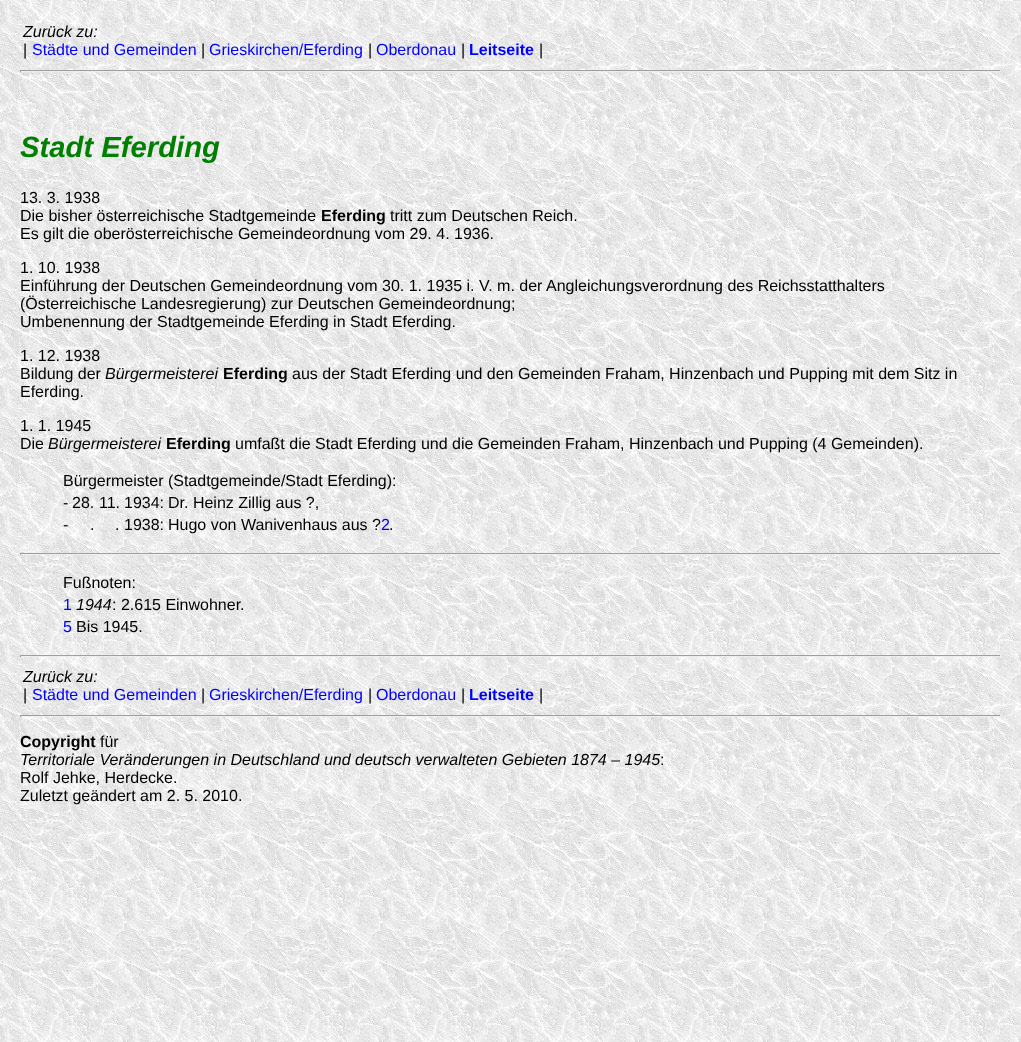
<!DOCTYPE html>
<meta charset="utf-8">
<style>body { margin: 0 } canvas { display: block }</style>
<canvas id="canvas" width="1021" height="1042"></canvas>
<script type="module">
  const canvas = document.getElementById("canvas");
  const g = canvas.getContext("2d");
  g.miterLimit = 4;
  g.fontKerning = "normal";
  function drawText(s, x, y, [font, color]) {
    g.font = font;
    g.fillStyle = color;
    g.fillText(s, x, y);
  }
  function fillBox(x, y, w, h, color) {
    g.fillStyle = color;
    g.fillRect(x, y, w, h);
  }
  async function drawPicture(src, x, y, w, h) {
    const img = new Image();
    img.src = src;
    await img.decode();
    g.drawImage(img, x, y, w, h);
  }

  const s1 = ["italic 16px Liberation Sans", "#000000"];
  const s2 = ["16px Liberation Sans", "#000000"];
  const s3 = ["16px Liberation Sans", "#0000FF"];
  const s4 = ["bold 16px Liberation Sans", "#0000FF"];
  const s5 = ["italic bold 29.25px Liberation Sans", "#008000"];
  const s6 = ["bold 16px Liberation Sans", "#000000"];

  fillBox(0, 0, 1021, 1042, "#FFFFFF");
  await drawPicture("pic1.png", 0, 0, 1021, 1042);
  drawText("Zurück zu:", 23, 37, s1);
  drawText("|", 23, 55, s2);
  drawText("Städte und Gemeinden", 32, 55, s3);
  drawText("|", 201, 55, s2);
  drawText("Grieskirchen/Eferding", 209, 55, s3);
  drawText("|", 368, 55, s2);
  drawText("Oberdonau", 376, 55, s3);
  drawText("|", 461, 55, s2);
  drawText("Leitseite", 469, 55, s4);
  drawText("|", 539, 55, s2);
  fillBox(20, 70, 981, 1, "#9F9F9F");
  fillBox(1000, 70, 1, 2, "#EEEEEE");
  fillBox(20, 71, 981, 1, "#EEEEEE");
  fillBox(20, 70, 1, 2, "#9F9F9F");
  drawText("Stadt Eferding", 20, 157, s5);
  drawText("13. 3. 1938", 20, 203, s2);
  drawText("Die bisher österreichische Stadtgemeinde", 20, 221, s2);
  drawText("Eferding", 321, 221, s6);
  drawText("tritt zum Deutschen Reich.", 390, 221, s2);
  drawText("Es gilt die oberösterreichische Gemeindeordnung vom 29. 4. 1936.", 20, 239, s2);
  drawText("1. 10. 1938", 20, 273, s2);
  drawText("Einführung der Deutschen Gemeindeordnung vom 30. 1. 1935 i. V. m. der Angleichungsverordnung des Reichsstatthalters", 20, 291, s2);
  drawText("(Österreichische Landesregierung) zur Deutschen Gemeindeordnung;", 20, 309, s2);
  drawText("Umbenennung der Stadtgemeinde Eferding in Stadt Eferding.", 20, 327, s2);
  drawText("1. 12. 1938", 20, 361, s2);
  drawText("Bildung der", 20, 379, s2);
  drawText("Bürgermeisterei", 105, 379, s1);
  drawText("Eferding", 223, 379, s6);
  drawText("aus der Stadt Eferding und den Gemeinden Fraham, Hinzenbach und Pupping mit dem Sitz in", 292, 379, s2);
  drawText("Eferding.", 20, 397, s2);
  drawText("1. 1. 1945", 20, 431, s2);
  drawText("Die", 20, 449, s2);
  drawText("Bürgermeisterei", 48, 449, s1);
  drawText("Eferding", 166, 449, s6);
  drawText("umfaßt die Stadt Eferding und die Gemeinden Fraham, Hinzenbach und Pupping (4 Gemeinden).", 235, 449, s2);
  drawText("Bürgermeister (Stadtgemeinde/Stadt Eferding):", 63, 486, s2);
  drawText("-", 63, 508, s2);
  drawText("28.", 72, 508, s2);
  drawText("11.", 99, 508, s2);
  drawText("1934:", 124, 508, s2);
  drawText("Dr. Heinz Zillig aus ?,", 168, 508, s2);
  drawText("-", 63, 530, s2);
  drawText("1938:", 124, 530, s2);
  drawText("Hugo von Wanivenhaus aus ?", 168, 530, s2);
  drawText("2", 381, 530, s3);
  drawText(".", 389, 530, s2);
  drawText(".", 90, 530, s2);
  drawText(".", 115, 530, s2);
  fillBox(20, 553, 981, 1, "#9F9F9F");
  fillBox(1000, 553, 1, 2, "#EEEEEE");
  fillBox(20, 554, 981, 1, "#EEEEEE");
  fillBox(20, 553, 1, 2, "#9F9F9F");
  drawText("Fußnoten:", 63, 588, s2);
  drawText("1", 63, 610, s3);
  drawText("1944", 76, 610, s1);
  drawText(": 2.615 Einwohner.", 112, 610, s2);
  drawText("5", 63, 632, s3);
  drawText("Bis 1945.", 76, 632, s2);
  fillBox(20, 655, 981, 1, "#9F9F9F");
  fillBox(1000, 655, 1, 2, "#EEEEEE");
  fillBox(20, 656, 981, 1, "#EEEEEE");
  fillBox(20, 655, 1, 2, "#9F9F9F");
  drawText("Zurück zu:", 23, 682, s1);
  drawText("|", 23, 700, s2);
  drawText("Städte und Gemeinden", 32, 700, s3);
  drawText("|", 201, 700, s2);
  drawText("Grieskirchen/Eferding", 209, 700, s3);
  drawText("|", 368, 700, s2);
  drawText("Oberdonau", 376, 700, s3);
  drawText("|", 461, 700, s2);
  drawText("Leitseite", 469, 700, s4);
  drawText("|", 539, 700, s2);
  fillBox(20, 715, 981, 1, "#9F9F9F");
  fillBox(1000, 715, 1, 2, "#EEEEEE");
  fillBox(20, 716, 981, 1, "#EEEEEE");
  fillBox(20, 715, 1, 2, "#9F9F9F");
  drawText("Copyright", 20, 747, s6);
  drawText("für", 100, 747, s2);
  drawText("Territoriale Veränderungen in Deutschland und deutsch verwalteten Gebieten 1874 – 1945", 20, 765, s1);
  drawText(":", 660, 765, s2);
  drawText("Rolf Jehke, Herdecke.", 20, 783, s2);
  drawText("Zuletzt geändert am 2. 5. 2010.", 20, 801, s2);
</script>
